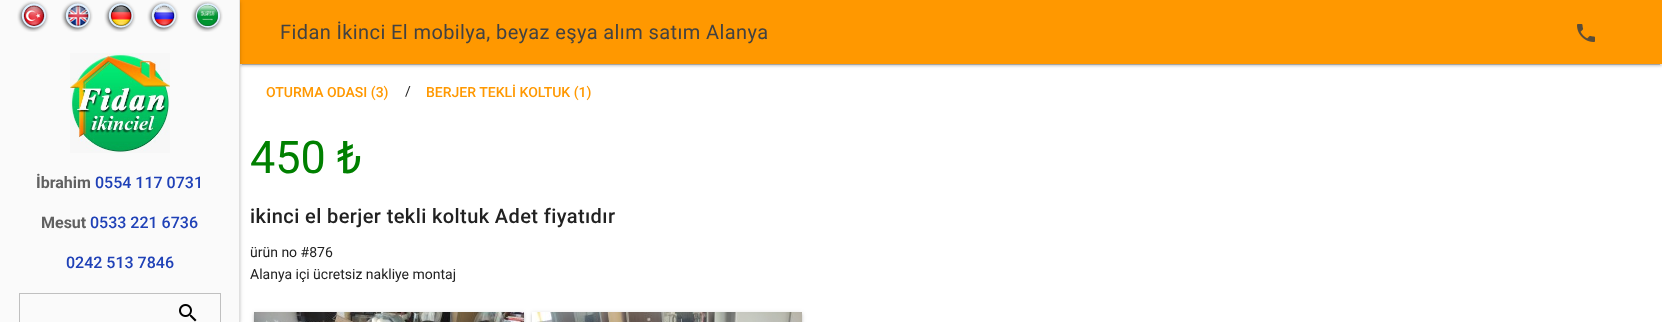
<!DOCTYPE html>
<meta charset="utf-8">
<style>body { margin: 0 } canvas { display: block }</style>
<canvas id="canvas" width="1662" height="322"></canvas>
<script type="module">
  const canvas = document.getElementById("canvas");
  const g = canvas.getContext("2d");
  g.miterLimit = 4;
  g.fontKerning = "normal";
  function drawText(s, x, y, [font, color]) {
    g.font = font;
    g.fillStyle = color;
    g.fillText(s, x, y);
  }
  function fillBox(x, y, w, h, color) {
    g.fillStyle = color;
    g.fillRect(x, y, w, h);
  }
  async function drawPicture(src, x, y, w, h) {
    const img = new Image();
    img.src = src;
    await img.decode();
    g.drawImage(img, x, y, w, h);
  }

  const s1 = ["20px Roboto", "#424242"];
  const s2 = ["bold 16px Roboto", "#616161"];
  const s3 = ["500 16px Roboto", "#1F41B7"];
  const s4 = ["500 14px Roboto", "#FF9800"];
  const s5 = ["14px Roboto", "#212121"];
  const s6 = ["45px Roboto", "#008000"];
  const s7 = ["500 20px Roboto", "#212121"];

  fillBox(0, 0, 1662, 322, "#FFFFFF");
  g.fillStyle = "rgba(0, 0, 0, 0.12)";
  g.filter = "blur(2.5px)";
  g.beginPath();
  g.rect(240, 1, 1422, 64);
  g.fill();
  g.filter = "none";
  g.fillStyle = "rgba(0, 0, 0, 0.2)";
  g.filter = "blur(0.5px)";
  g.beginPath();
  g.rect(242, 5, 1418, 60);
  g.fill();
  g.filter = "none";
  g.fillStyle = "rgba(0, 0, 0, 0.14)";
  g.filter = "blur(1px)";
  g.beginPath();
  g.rect(240, 2, 1422, 64);
  g.fill();
  g.filter = "none";
  fillBox(240, 0, 1422, 64, "#FF9800");
  g.letterSpacing = "0.4px";
  drawText("Fidan İkinci El mobilya, beyaz eşya alım satım Alanya", 280, 39, s1);
  await drawPicture("pic1.png", 1577, 24, 18, 18);
  g.fillStyle = "rgba(0, 0, 0, 0.12)";
  g.filter = "blur(2.5px)";
  g.beginPath();
  g.rect(0, 1, 240, 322);
  g.fill();
  g.filter = "none";
  g.fillStyle = "rgba(0, 0, 0, 0.14)";
  g.filter = "blur(1px)";
  g.beginPath();
  g.rect(0, 2, 240, 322);
  g.fill();
  g.filter = "none";
  fillBox(0, 0, 239, 322, "#FAFAFA");
  fillBox(239, 0, 1, 322, "#E0E0E0");
  await drawPicture("pic2.png", 17, 1, 32, 31);
  await drawPicture("pic3.png", 61, 1, 32, 31);
  await drawPicture("pic4.png", 104, 1, 32, 31);
  await drawPicture("pic5.png", 147, 1, 32, 31);
  await drawPicture("pic6.png", 191, 1, 32, 31);
  await drawPicture("pic7.png", 70, 53, 100, 100);
  g.letterSpacing = "0px";
  drawText("İbrahim", 36, 188, s2);
  drawText("0554 117 0731", 95, 188, s3);
  drawText("Mesut", 41, 228, s2);
  drawText("0533 221 6736", 90, 228, s3);
  drawText("0242 513 7846", 66, 268, s3);
  g.strokeStyle = "#C0C0C0";
  g.strokeRect(19.5, 293.5, 201, 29);
  await drawPicture("pic8.png", 179, 304, 18, 18);
  drawText("OTURMA ODASI (3)", 266, 97, s4);
  drawText("/", 405, 96, s5);
  drawText("BERJER TEKLİ KOLTUK (1)", 426, 97, s4);
  drawText("450 ₺", 250, 173, s6);
  g.letterSpacing = "0.4px";
  drawText("ikinci el berjer tekli koltuk Adet fiyatıdır", 250, 223, s7);
  g.letterSpacing = "0px";
  drawText("ürün no #876", 250, 257, s5);
  drawText("Alanya içi ücretsiz nakliye montaj", 250, 279, s5);
  g.fillStyle = "rgba(0, 0, 0, 0.12)";
  g.filter = "blur(2.5px)";
  g.beginPath();
  g.rect(254, 313, 270, 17);
  g.fill();
  g.filter = "none";
  g.fillStyle = "rgba(0, 0, 0, 0.14)";
  g.filter = "blur(1px)";
  g.beginPath();
  g.rect(254, 314, 270, 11);
  g.fill();
  g.filter = "none";
  await drawPicture("pic9.png", 254, 312, 270, 10);
  g.save();
  g.beginPath();
  g.moveTo(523, 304);
  g.lineTo(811, 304);
  g.lineTo(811, 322);
  g.lineTo(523, 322);
  g.closePath();
  g.moveTo(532, 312);
  g.lineTo(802, 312);
  g.lineTo(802, 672);
  g.lineTo(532, 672);
  g.closePath();
  g.clip("evenodd");
  g.fillStyle = "rgba(0, 0, 0, 0.12)";
  g.filter = "blur(2.5px)";
  g.beginPath();
  g.rect(532, 313, 270, 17);
  g.fill();
  g.filter = "none";
  g.restore();
  g.save();
  g.beginPath();
  g.moveTo(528, 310);
  g.lineTo(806, 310);
  g.lineTo(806, 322);
  g.lineTo(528, 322);
  g.closePath();
  g.moveTo(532, 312);
  g.lineTo(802, 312);
  g.lineTo(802, 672);
  g.lineTo(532, 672);
  g.closePath();
  g.clip("evenodd");
  g.filter = "blur(1px)";
  g.beginPath();
  g.rect(532, 314, 270, 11);
  g.fill();
  g.filter = "none";
  g.restore();
  await drawPicture("pic10.png", 535, 312, 267, 10);
</script>
